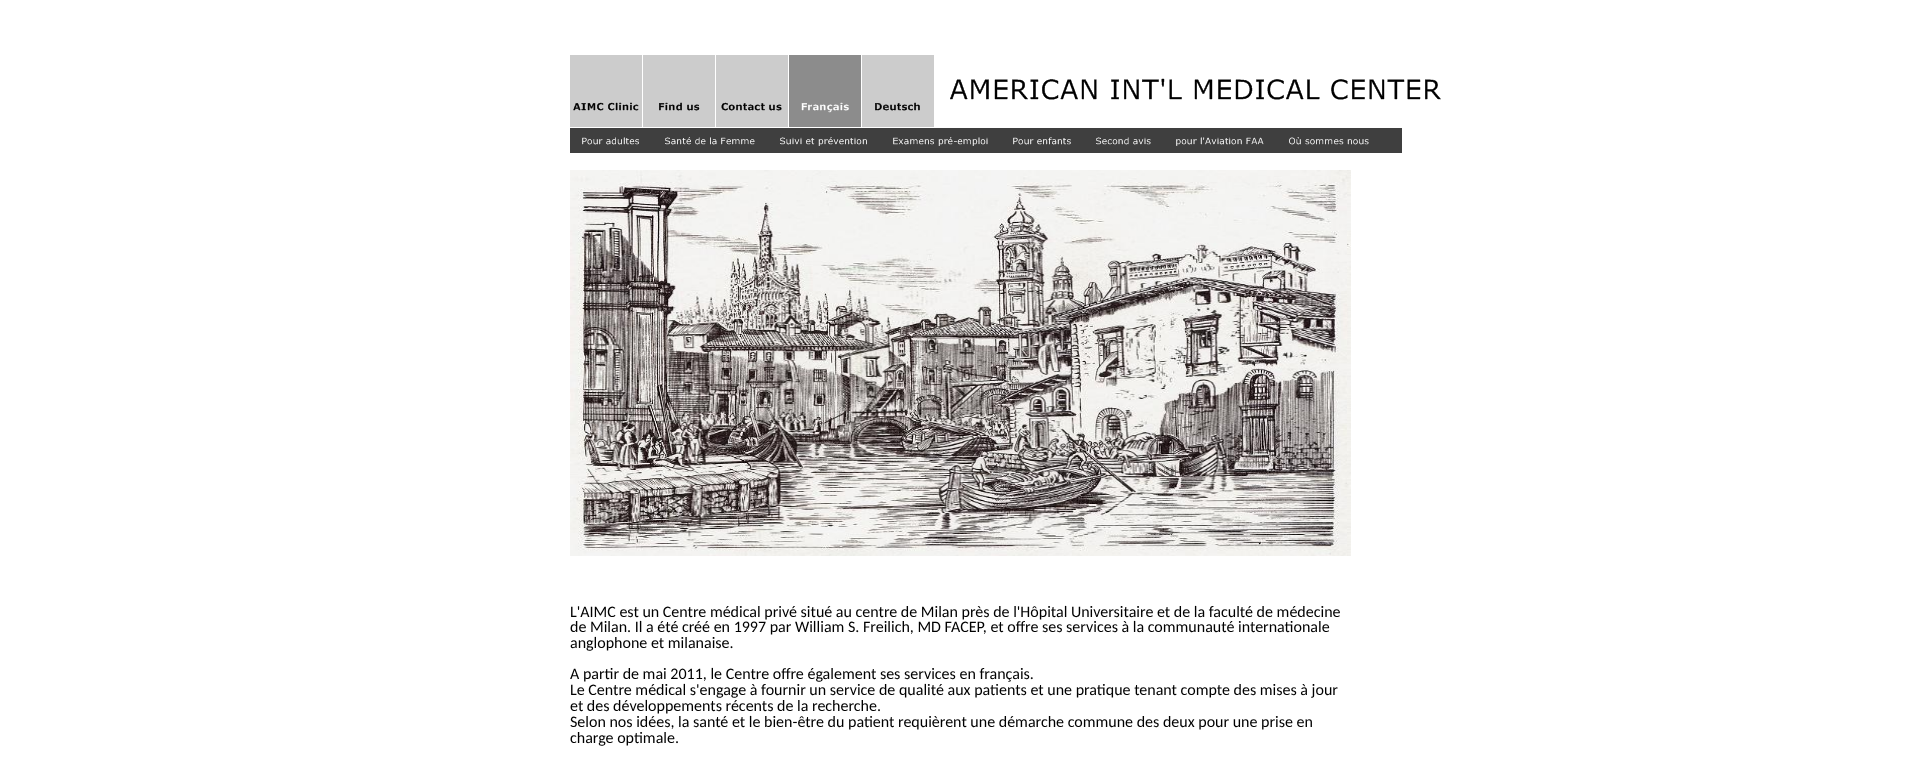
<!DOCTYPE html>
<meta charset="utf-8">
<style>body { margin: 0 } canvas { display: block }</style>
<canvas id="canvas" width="1914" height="780"></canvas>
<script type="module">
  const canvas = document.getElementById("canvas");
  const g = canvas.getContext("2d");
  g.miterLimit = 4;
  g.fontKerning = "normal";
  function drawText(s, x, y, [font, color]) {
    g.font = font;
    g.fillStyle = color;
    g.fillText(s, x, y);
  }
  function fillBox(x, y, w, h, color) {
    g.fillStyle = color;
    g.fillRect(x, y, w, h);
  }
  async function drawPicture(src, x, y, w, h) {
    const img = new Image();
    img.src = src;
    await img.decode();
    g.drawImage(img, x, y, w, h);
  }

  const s1 = ["16px Carlito", "#000000"];

  fillBox(0, 0, 1914, 780, "#FFFFFF");
  await drawPicture("pic1.png", 570, 55, 72, 72);
  await drawPicture("pic2.png", 643, 55, 72, 72);
  await drawPicture("pic3.png", 716, 55, 72, 72);
  await drawPicture("pic4.png", 789, 55, 72, 72);
  await drawPicture("pic5.png", 862, 55, 72, 72);
  await drawPicture("pic6.png", 950, 78, 491, 22);
  fillBox(570, 128, 719, 25, "#3F3F3F");
  await drawPicture("pic7.png", 582, 137, 57, 8);
  await drawPicture("pic8.png", 665, 137, 90, 8);
  await drawPicture("pic9.png", 780, 137, 87, 9);
  await drawPicture("pic10.png", 893, 137, 95, 9);
  await drawPicture("pic11.png", 1013, 137, 58, 8);
  await drawPicture("pic12.png", 1096, 137, 55, 8);
  await drawPicture("pic13.png", 1176, 137, 88, 9);
  await drawPicture("pic14.png", 1289, 128, 92, 25);
  fillBox(1381, 128, 21, 25, "#3F3F3F");
  await drawPicture("pic15.png", 570, 170, 781, 386);
  drawText("L'AIMC est un Centre médical privé situé au centre de Milan près de l'Hôpital Universitaire et de la faculté de médecine", 570, 617, s1);
  drawText("de Milan. Il a été créé en 1997 par William S. Freilich, MD FACEP, et offre ses services à la communauté internationale", 570, 632, s1);
  drawText("anglophone et milanaise.", 570, 648, s1);
  drawText("A partir de mai 2011, le Centre offre également ses services en français.", 570, 679, s1);
  drawText("Le Centre médical s'engage à fournir un service de qualité aux patients et une pratique tenant compte des mises à jour", 570, 695, s1);
  drawText("et des développements récents de la recherche.", 570, 711, s1);
  drawText("Selon nos idées, la santé et le bien-être du patient requièrent une démarche commune des deux pour une prise en", 570, 727, s1);
  drawText("charge optimale.", 570, 743, s1);
</script>
